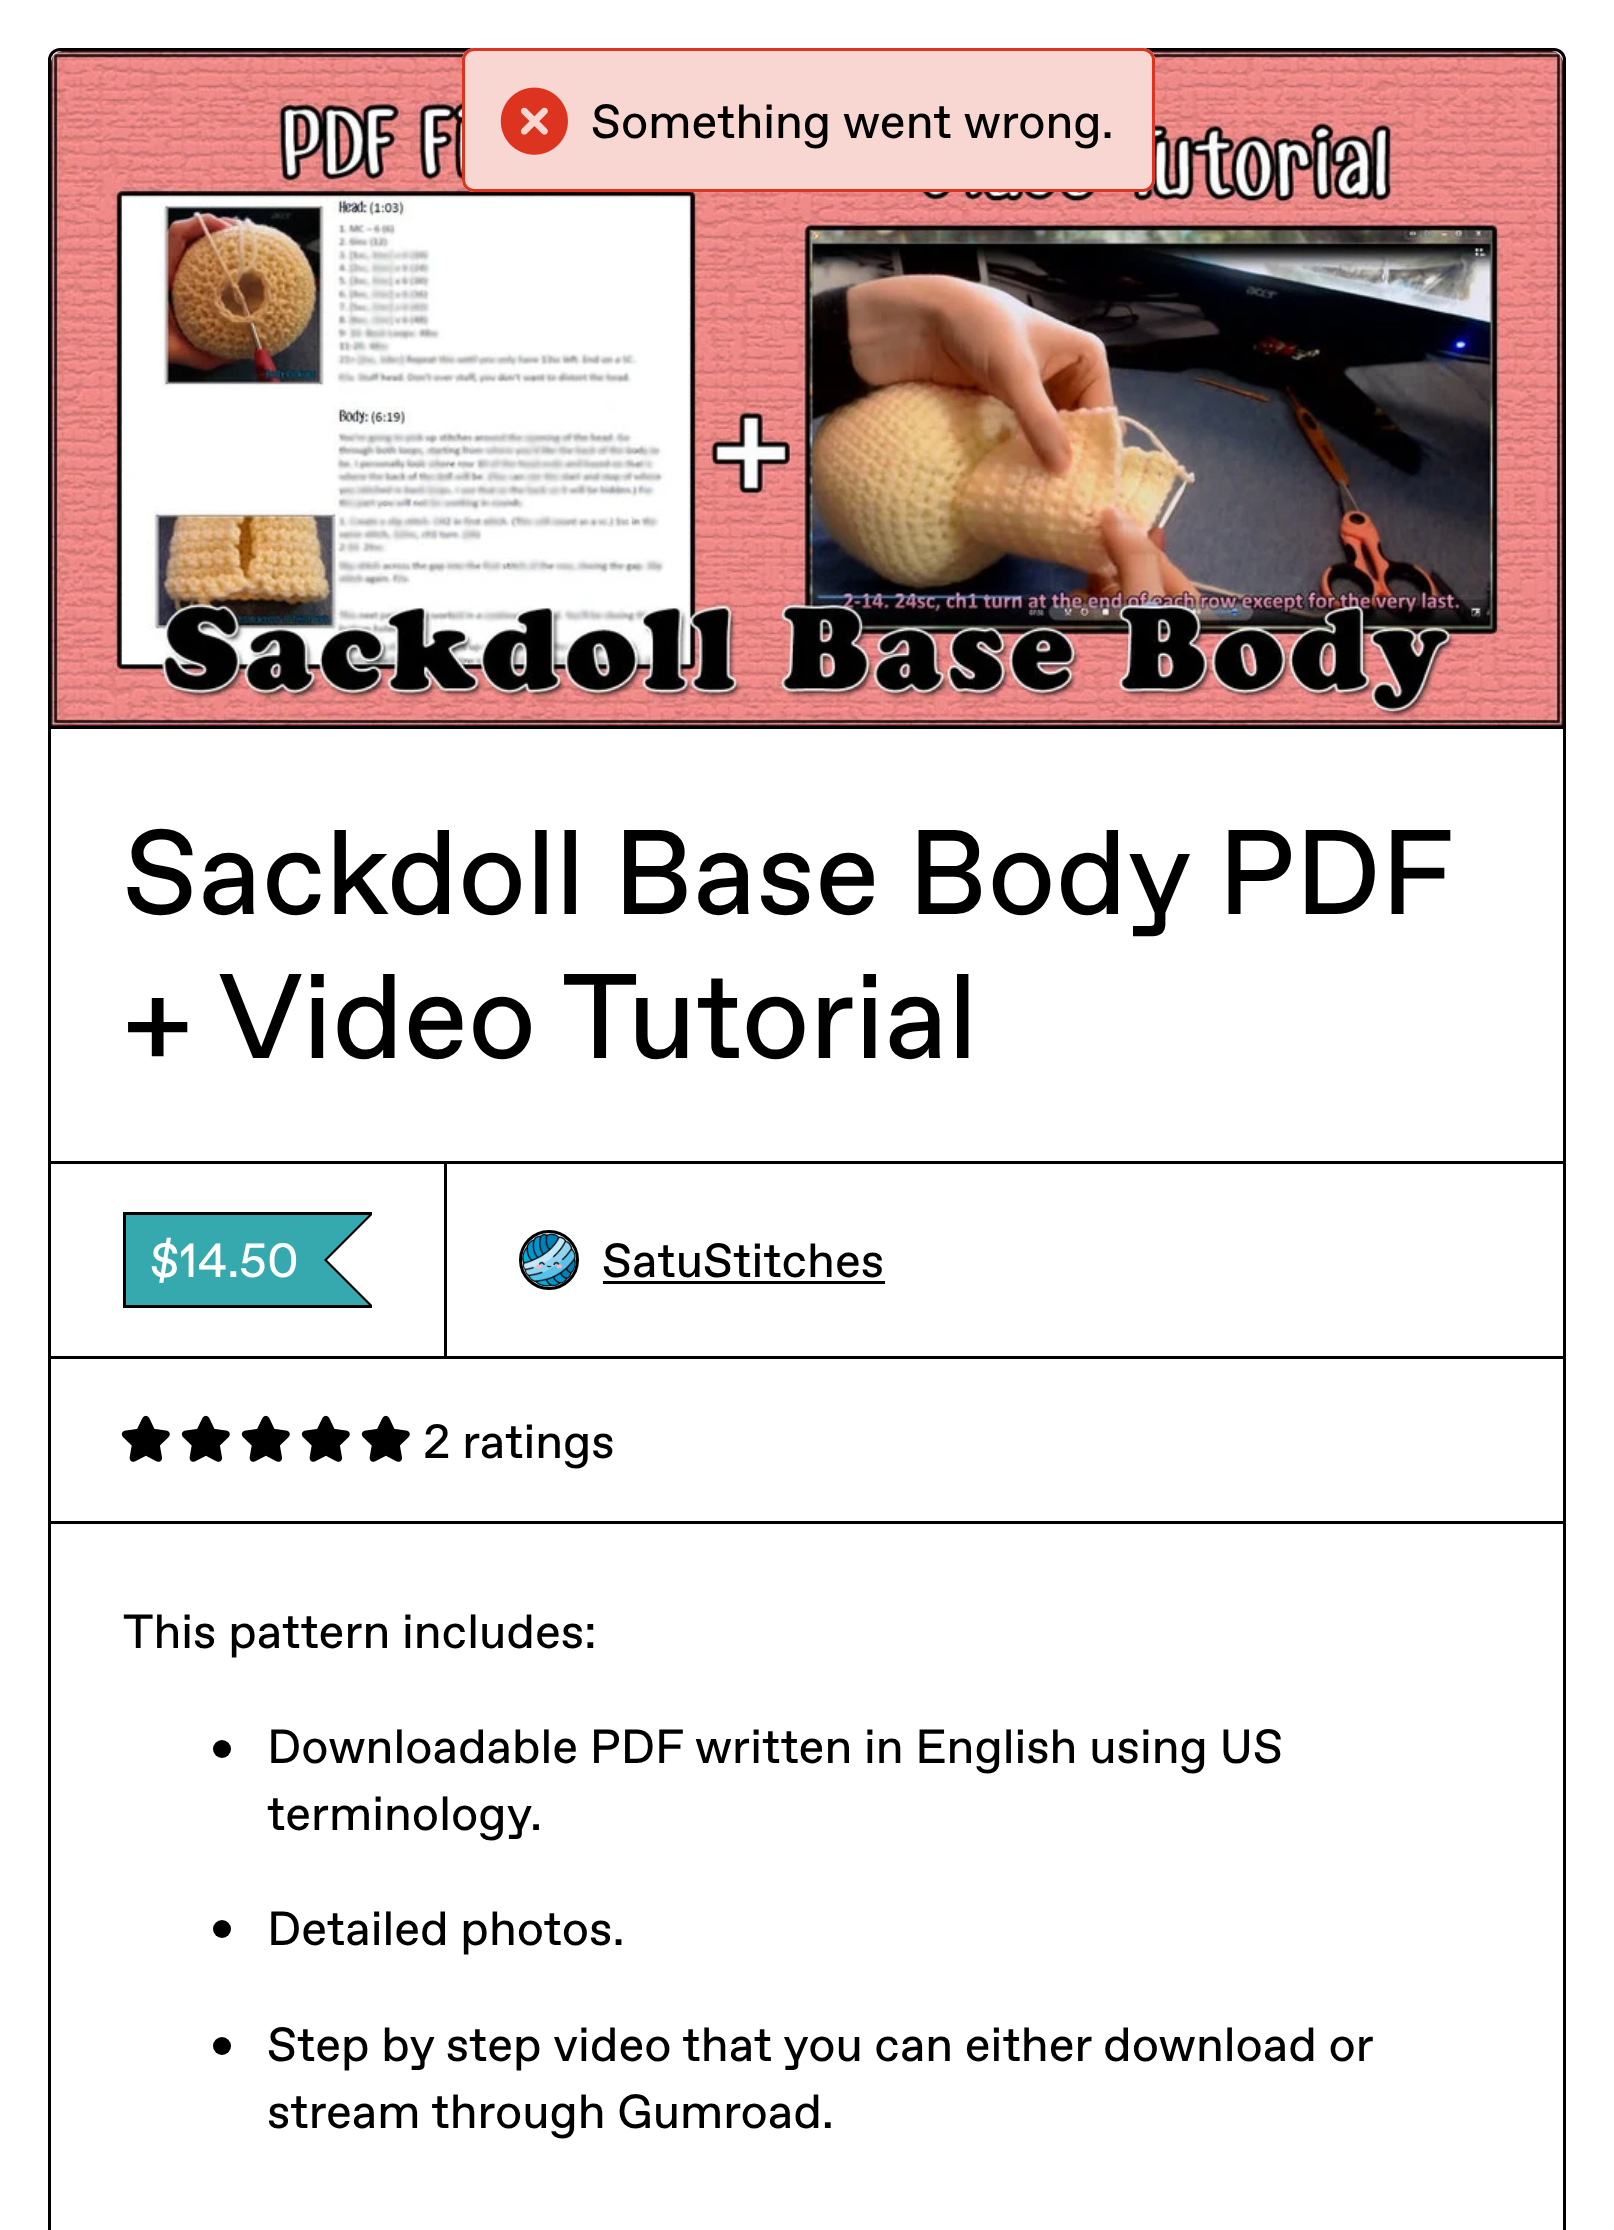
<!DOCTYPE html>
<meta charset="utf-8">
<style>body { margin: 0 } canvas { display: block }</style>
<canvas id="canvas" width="1614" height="2230"></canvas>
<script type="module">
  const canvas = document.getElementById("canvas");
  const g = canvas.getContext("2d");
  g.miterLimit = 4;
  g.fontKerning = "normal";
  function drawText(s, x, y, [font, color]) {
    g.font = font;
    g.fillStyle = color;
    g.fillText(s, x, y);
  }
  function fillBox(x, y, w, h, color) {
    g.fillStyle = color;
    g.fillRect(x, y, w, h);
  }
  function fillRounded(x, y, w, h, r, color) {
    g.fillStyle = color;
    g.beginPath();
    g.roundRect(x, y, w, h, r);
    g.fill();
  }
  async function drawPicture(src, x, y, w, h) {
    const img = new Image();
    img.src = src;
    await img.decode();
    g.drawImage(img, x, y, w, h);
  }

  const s1 = ["48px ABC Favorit", "#000000"];
  const s2 = ["120px ABC Favorit", "#000000"];
  const s3 = ["48px ABC Favorit", "#FFFFFF"];

  fillBox(0, 0, 1614, 2230, "#FFFFFF");
  g.beginPath();
  g.roundRect(49.5, 49.5, 1515, 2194, 10.5);
  g.strokeStyle = "#000000";
  g.lineWidth = 3;
  g.stroke();
  await drawPicture("pic2.png", 51, 51, 1512, 675);
  fillRounded(462, 48, 693, 144, 12, "#FFFFFF");
  g.fillStyle = "rgba(220, 52, 30, 0.2)";
  g.beginPath();
  g.roundRect(463.5, 49.5, 690, 141, 10.5);
  g.fill();
  g.strokeStyle = "#DC341E";
  g.stroke();
  await drawPicture("pic1.png", 500, 87, 68, 68);
  drawText("Something went wrong.", 591, 138, s1);
  fillBox(51, 726, 1512, 3, "#000000");
  g.wordSpacing = "-1px";
  drawText("Sackdoll Base Body PDF", 123, 914, s2);
  g.wordSpacing = "0px";
  drawText("+ Video Tutorial", 123, 1058, s2);
  g.strokeStyle = "#000000";
  g.strokeRect(49.5, 1162.5, 396, 195);
  fillBox(123, 1212, 249, 3, "#000000");
  fillBox(123, 1305, 249, 3, "#000000");
  fillBox(123, 1212, 3, 96, "#000000");
  fillBox(126, 1215, 198, 90, "#36A9AE");
  g.fillStyle = "#000000";
  g.beginPath();
  g.moveTo(324, 1215);
  g.lineTo(372, 1215);
  g.lineTo(327, 1260);
  g.closePath();
  g.fill();
  g.beginPath();
  g.moveTo(372, 1305);
  g.lineTo(324, 1305);
  g.lineTo(327, 1260);
  g.closePath();
  g.fill();
  fillBox(324, 1257, 3, 6, "#000000");
  g.fillStyle = "#36A9AE";
  g.beginPath();
  g.moveTo(321, 1215);
  g.lineTo(369, 1215);
  g.lineTo(324, 1260);
  g.closePath();
  g.fill();
  g.beginPath();
  g.moveTo(369, 1305);
  g.lineTo(321, 1305);
  g.lineTo(324, 1260);
  g.closePath();
  g.fill();
  drawText("$14.50", 150, 1277, s3);
  g.strokeRect(445.5, 1162.5, 1119, 195);
  g.beginPath();
  g.arc(549, 1260, 28.5, 0, Math.PI * 2);
  g.stroke();
  await drawPicture("pic3.png", 522, 1233, 54, 54);
  drawText("SatuStitches", 602, 1277, s1);
  fillBox(603, 1281, 282, 3, "#000000");
  await drawPicture("pic4.png", 121, 1415, 49, 47);
  await drawPicture("pic4.png", 181, 1415, 49, 47);
  await drawPicture("pic4.png", 241, 1415, 49, 47);
  await drawPicture("pic4.png", 301, 1415, 49, 47);
  await drawPicture("pic4.png", 361, 1415, 49, 47);
  drawText("2 ratings", 423, 1458, s1);
  fillBox(51, 1521, 1512, 3, "#000000");
  drawText("This pattern includes:", 123, 1648, s1);
  g.beginPath();
  g.arc(222, 1749, 9, 0, Math.PI * 2);
  g.fill();
  drawText("Downloadable PDF written in English using US", 267, 1763, s1);
  drawText("terminology.", 267, 1830, s1);
  g.beginPath();
  g.arc(222, 1929, 9, 0, Math.PI * 2);
  g.fill();
  drawText("Detailed photos.", 267, 1945, s1);
  g.beginPath();
  g.arc(222, 2046, 9, 0, Math.PI * 2);
  g.fill();
  g.wordSpacing = "-0.1px";
  drawText("Step by step video that you can either download or", 267, 2061, s1);
  g.wordSpacing = "0px";
  drawText("stream through Gumroad.", 267, 2128, s1);
</script>
